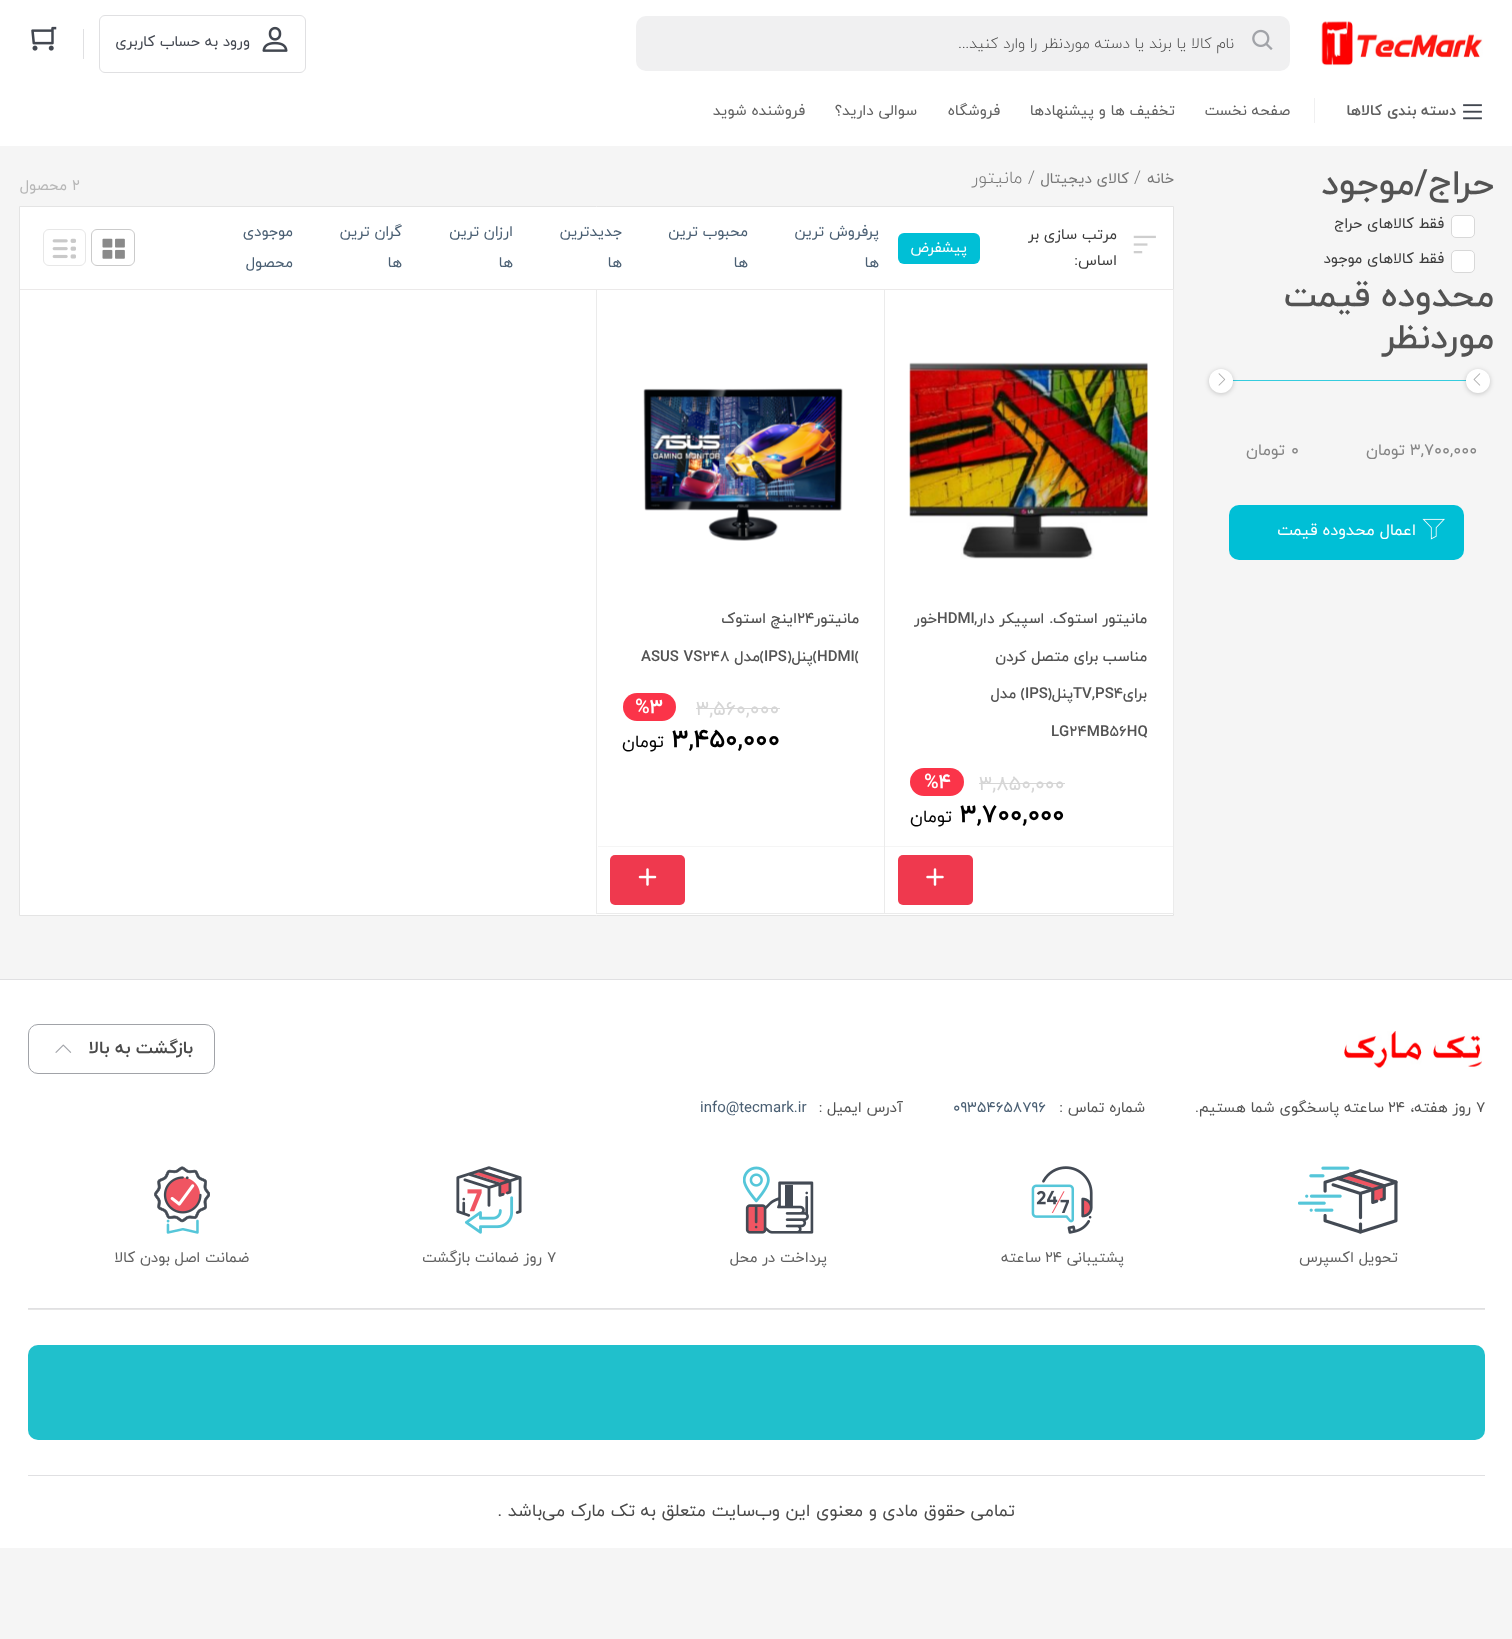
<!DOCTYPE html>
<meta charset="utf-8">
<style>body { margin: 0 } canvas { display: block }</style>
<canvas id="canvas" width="1512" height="1639"></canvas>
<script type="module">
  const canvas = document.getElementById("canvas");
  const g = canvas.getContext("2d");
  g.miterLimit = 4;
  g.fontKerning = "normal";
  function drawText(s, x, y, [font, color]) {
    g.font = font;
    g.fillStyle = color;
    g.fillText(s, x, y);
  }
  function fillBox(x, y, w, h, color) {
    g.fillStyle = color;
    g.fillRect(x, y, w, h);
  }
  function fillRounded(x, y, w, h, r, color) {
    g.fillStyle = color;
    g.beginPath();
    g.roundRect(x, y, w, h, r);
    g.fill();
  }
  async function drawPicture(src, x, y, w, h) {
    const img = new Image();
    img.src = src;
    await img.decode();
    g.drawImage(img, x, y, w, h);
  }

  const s1 = ["300 15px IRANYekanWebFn", "#4A4A4A"];
  const s2 = ["15px IRANYekanWebFn", "#424750"];
  const s3 = ["bold 15px IRANYekanWebFn", "#606060"];
  const s4 = ["15px IRANYekanWebFn", "#606060"];
  const s5 = ["500 35px IRANYekanWebFn", "#535353"];
  const s6 = ["15px IRANYekanWebFn", "#3B3B3B"];
  const s7 = ["16.25px IRANYekanWebFn", "#858585"];
  const s8 = ["16.25px IRANYekanWebFn", "#FFFFFF"];
  const s9 = ["15px IRANYekanWebFn", "#767676"];
  const s10 = ["300 17.5px IRANYekanWebFn", "#767676"];
  const s11 = ["15px IRANYekanWebFn", "#B7B7B7"];
  const s12 = ["15px IRANYekanWebFn", "#FFFFFF"];
  const s13 = ["15px IRANYekanWebFn", "#4A5F73"];
  const s14 = ["500 15px IRANYekanWebFn", "#535353"];
  const s15 = ["bold 20px IRANYekanWebFn", "#FFFFFF"];
  const s16 = ["20px IRANYekanWebFn", "#D6D6D6"];
  const s17 = ["bold 25px IRANYekanWebFn", "#000000"];
  const s18 = ["17.5px IRANYekanWebFn", "#000000"];
  const s19 = ["bold 17.5px IRANYekanWebFn", "#4A4A4A"];
  const s20 = ["15px IRANYekanWebFn", "#535353"];
  const s21 = ["17.5px IRANYekanWebFn", "#4A4A4A"];

  fillBox(0, 0, 1512, 1639, "#F5F5F5");
  fillBox(0, 0, 1512, 146, "#FFFFFF");
  await drawPicture("pic1.png", 1321, 21, 162, 45);
  fillRounded(636, 16, 654, 55, 10, "#F0F0F1");
  await drawPicture("pic2.png", 1252, 29, 21, 21);
  g.direction = "rtl";
  drawText("نام کالا یا برند یا دسته موردنظر را وارد کنید...", 1234, 48, s1);
  g.beginPath();
  g.roundRect(99.5, 15.5, 206, 57, 5.5);
  g.strokeStyle = "#E0E0E2";
  g.stroke();
  await drawPicture("pic3.png", 262, 26, 26, 26);
  drawText("ورود به حساب کاربری", 250, 46, s2);
  fillBox(83, 29, 1, 30, "#E0E0E2");
  await drawPicture("pic4.png", 31, 26, 26, 25);
  await drawPicture("pic5.png", 1463, 104, 19, 16);
  drawText("دسته بندی کالاها", 1456, 115, s3);
  fillBox(1314, 98, 1, 25, "#F0F0F1");
  drawText("صفحه نخست", 1290, 115, s4);
  drawText("تخفیف ها و پیشنهادها", 1175, 115, s4);
  drawText("فروشگاه", 1000, 115, s4);
  drawText("سوالی دارید؟", 917, 115, s4);
  drawText("فروشنده شوید", 805, 115, s4);
  drawText("حراج/موجود", 1494, 194, s5);
  g.fillStyle = "#FFFFFF";
  g.beginPath();
  g.roundRect(1451.5, 215.5, 23, 22, 4.5);
  g.fill();
  g.strokeStyle = "#D8D8D8";
  g.stroke();
  drawText("فقط کالاهای حراج", 1444, 228, s6);
  g.fillStyle = "#FFFFFF";
  g.beginPath();
  g.roundRect(1451.5, 250.5, 23, 22, 4.5);
  g.fill();
  g.stroke();
  drawText("فقط کالاهای موجود", 1444, 263, s6);
  drawText("محدوده قیمت", 1494, 306, s5);
  drawText("موردنظر", 1494, 348, s5);
  fillBox(1232, 380, 243, 1, "#35CCDE");
  g.fillStyle = "rgba(0, 0, 0, 0.2)";
  g.filter = "blur(2.5px)";
  g.beginPath();
  g.roundRect(1466, 370, 24, 24, 12);
  g.fill();
  g.filter = "none";
  g.fillStyle = "#FFFFFF";
  g.beginPath();
  g.arc(1478, 381, 12, 0, Math.PI * 2);
  g.fill();
  await drawPicture("pic6.png", 1473, 373, 8, 13);
  g.fillStyle = "rgba(0, 0, 0, 0.2)";
  g.filter = "blur(2.5px)";
  g.beginPath();
  g.roundRect(1209, 370, 24, 24, 12);
  g.fill();
  g.filter = "none";
  g.fillStyle = "#FFFFFF";
  g.beginPath();
  g.arc(1221, 381, 12, 0, Math.PI * 2);
  g.fill();
  await drawPicture("pic7.png", 1218, 373, 8, 13);
  g.direction = "ltr";
  drawText("3,700,000", 1410, 455, s7);
  g.direction = "rtl";
  drawText("تومان", 1405, 455, s7);
  g.direction = "ltr";
  drawText("0", 1291, 455, s7);
  g.direction = "rtl";
  drawText("تومان", 1285, 455, s7);
  fillRounded(1229, 505, 235, 55, 10, "#00BFD6");
  await drawPicture("pic8.png", 1422, 518, 23, 22);
  drawText("اعمال محدوده قیمت", 1416, 535, s8);
  drawText("خانه", 1174, 183, s9);
  g.direction = "ltr";
  drawText("/", 1134, 183, s10);
  g.direction = "rtl";
  drawText("کالای دیجیتال", 1129, 183, s9);
  drawText("/ مانیتور", 1035, 183, s10);
  g.fillStyle = "#FFFFFF";
  g.beginPath();
  g.rect(19.5, 206.5, 1154, 709);
  g.fill();
  g.strokeStyle = "#E4E4E4";
  g.stroke();
  g.direction = "ltr";
  drawText("2", 72, 190, s11);
  g.direction = "rtl";
  drawText("محصول", 67, 190, s11);
  fillBox(1173, 289, 1, 625, "#EBEBEB");
  fillBox(884, 913, 290, 1, "#EBEBEB");
  fillBox(884, 289, 1, 625, "#EBEBEB");
  fillBox(596, 913, 289, 1, "#EBEBEB");
  fillBox(596, 289, 1, 625, "#EBEBEB");
  fillBox(20, 289, 1153, 1, "#EBE9E9");
  await drawPicture("pic9.png", 1133, 235, 23, 19);
  drawText("مرتب سازی بر", 1117, 239, s6);
  drawText("اساس:", 1117, 265, s6);
  fillRounded(898, 233, 82, 31, 6, "#00BFD6");
  drawText("پیشفرض", 967, 252, s12);
  drawText("پرفروش ترین", 879, 236, s13);
  drawText("ها", 879, 267, s13);
  drawText("محبوب ترین", 748, 236, s13);
  drawText("ها", 748, 267, s13);
  drawText("جدیدترین", 622, 236, s13);
  drawText("ها", 622, 267, s13);
  drawText("ارزان ترین", 513, 236, s13);
  drawText("ها", 513, 267, s13);
  drawText("گران ترین", 402, 236, s13);
  drawText("ها", 402, 267, s13);
  drawText("موجودی", 293, 236, s13);
  drawText("محصول", 293, 267, s13);
  g.beginPath();
  g.roundRect(91.5, 229.5, 43, 36, 5.5);
  g.strokeStyle = "#CBCBCB";
  g.stroke();
  await drawPicture("pic10.png", 102, 238, 23, 21);
  g.beginPath();
  g.roundRect(43.5, 229.5, 42, 36, 5.5);
  g.strokeStyle = "#E7E7E7";
  g.stroke();
  await drawPicture("pic11.png", 52, 238, 24, 21);
  await drawPicture("pic12.png", 909, 362, 239, 197);
  drawText("مانیتور استوک. اسپیکر دار,", 1147, 623, s14);
  g.direction = "ltr";
  drawText("HDMI", 937, 623, s14);
  g.direction = "rtl";
  drawText("خور", 937, 623, s14);
  drawText("مناسب برای متصل کردن", 1147, 661, s14);
  drawText("برای", 1147, 698, s14);
  g.direction = "ltr";
  drawText("TV,PS4", 1073, 698, s14);
  g.direction = "rtl";
  drawText("پنل(", 1073, 698, s14);
  g.direction = "ltr";
  drawText("IPS", 1025, 698, s14);
  g.direction = "rtl";
  drawText(") مدل", 1025, 698, s14);
  g.direction = "ltr";
  drawText("LG24MB56HQ", 1051, 736, s14);
  fillRounded(910, 768, 54, 28, 14, "#FB3449");
  drawText("%4", 924, 788, s15);
  drawText("3,850,000", 979, 790, s16);
  fillBox(979, 783, 86, 1, "#D6D6D6");
  drawText("3,700,000", 960, 822, s17);
  g.direction = "rtl";
  drawText("تومان", 952, 822, s18);
  fillBox(885, 846, 288, 1, "#F5F5F5");
  fillRounded(898, 855, 75, 50, 5, "#EF394E");
  await drawPicture("pic13.png", 926, 868, 18, 18);
  await drawPicture("pic14.png", 643, 388, 200, 153);
  drawText("مانیتور", 859, 623, s14);
  g.direction = "ltr";
  drawText("24", 797, 623, s14);
  g.direction = "rtl";
  drawText("اینچ استوک", 797, 623, s14);
  g.direction = "ltr";
  drawText("HDMI(", 817, 661, s14);
  g.direction = "rtl";
  drawText(")پنل(", 817, 661, s14);
  g.direction = "ltr";
  drawText("IPS", 764, 661, s14);
  g.direction = "rtl";
  drawText(")مدل", 764, 661, s14);
  g.direction = "ltr";
  drawText("ASUS VS248", 641, 661, s14);
  fillRounded(623, 693, 53, 28, 14, "#FB3449");
  drawText("%3", 635, 713, s15);
  drawText("3,560,000", 696, 715, s16);
  fillBox(696, 708, 84, 1, "#D6D6D6");
  drawText("3,450,000", 672, 747, s17);
  g.direction = "rtl";
  drawText("تومان", 664, 747, s18);
  fillBox(598, 846, 286, 1, "#F5F5F5");
  fillRounded(610, 855, 75, 50, 5, "#EF394E");
  await drawPicture("pic15.png", 638, 868, 19, 18);
  fillBox(0, 980, 1512, 568, "#FFFFFF");
  fillBox(0, 979, 1512, 1, "#E0E0E2");
  await drawPicture("pic16.png", 1344, 1031, 138, 38);
  g.beginPath();
  g.roundRect(28.5, 1024.5, 186, 49, 9.5);
  g.strokeStyle = "#A1A3A8";
  g.stroke();
  drawText("بازگشت به بالا", 193, 1053, s19);
  await drawPicture("pic17.png", 55, 1044, 17, 9);
  g.direction = "ltr";
  drawText("۷", 1476, 1112, s20);
  g.direction = "rtl";
  drawText("روز هفته،", 1471, 1112, s20);
  g.direction = "ltr";
  drawText("۲۴", 1388, 1112, s20);
  g.direction = "rtl";
  drawText("ساعته پاسخگوی شما هستیم.", 1384, 1112, s20);
  drawText("شماره تماس :", 1145, 1112, s20);
  g.direction = "ltr";
  drawText("09354658796", 953, 1112, s13);
  g.direction = "rtl";
  drawText("آدرس ایمیل :", 903, 1112, s20);
  g.direction = "ltr";
  drawText("info@tecmark.ir", 700, 1112, s13);
  fillBox(28, 1308, 1457, 1, "#E0E0E2");
  await drawPicture("pic18.png", 1298, 1166, 100, 68);
  g.direction = "rtl";
  drawText("تحویل اکسپرس", 1398, 1262, s4);
  await drawPicture("pic19.png", 1031, 1166, 62, 68);
  drawText("پشتیبانی", 1124, 1262, s4);
  g.direction = "ltr";
  drawText("24", 1045, 1262, s4);
  g.direction = "rtl";
  drawText("ساعته", 1041, 1262, s4);
  await drawPicture("pic20.png", 743, 1166, 71, 68);
  drawText("پرداخت در محل", 827, 1262, s4);
  await drawPicture("pic21.png", 456, 1166, 66, 68);
  g.direction = "ltr";
  drawText("7", 547, 1262, s4);
  g.direction = "rtl";
  drawText("روز ضمانت بازگشت", 542, 1262, s4);
  await drawPicture("pic22.png", 154, 1166, 56, 68);
  drawText("ضمانت اصل بودن کالا", 249, 1262, s4);
  fillBox(28, 1309, 1457, 1, "#E6E6E6");
  fillRounded(28, 1345, 1457, 95, 10, "#20C0CC");
  fillBox(28, 1475, 1457, 1, "#E0E0E2");
  drawText("تمامی حقوق مادی و معنوی این وب‌سایت متعلق به تک مارک می‌باشد .", 1015, 1516, s21);
</script>
